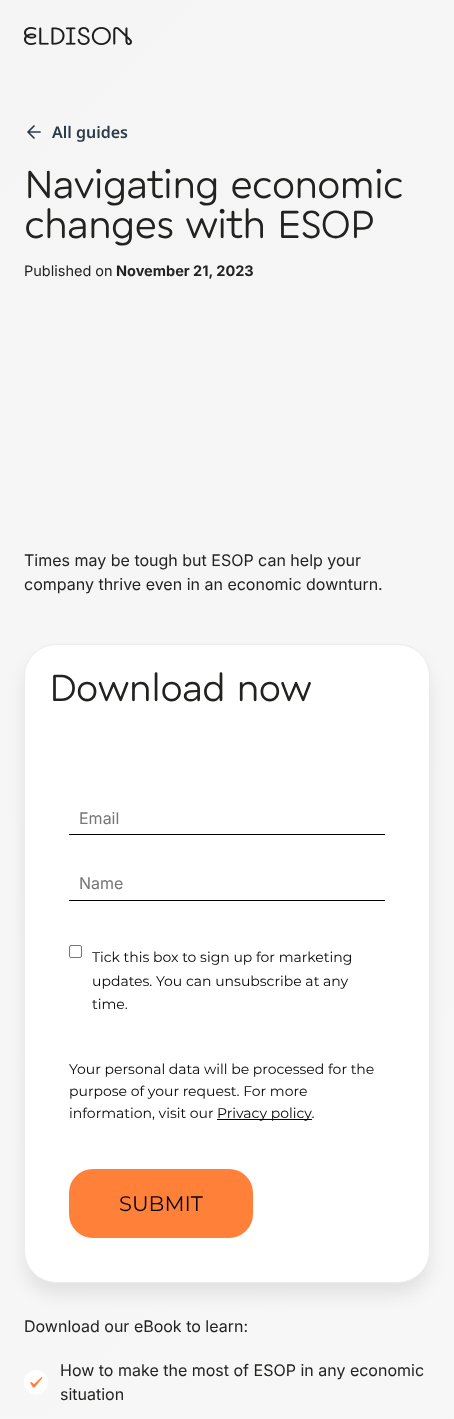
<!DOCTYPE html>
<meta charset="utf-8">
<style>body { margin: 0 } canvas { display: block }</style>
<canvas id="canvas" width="454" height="1419"></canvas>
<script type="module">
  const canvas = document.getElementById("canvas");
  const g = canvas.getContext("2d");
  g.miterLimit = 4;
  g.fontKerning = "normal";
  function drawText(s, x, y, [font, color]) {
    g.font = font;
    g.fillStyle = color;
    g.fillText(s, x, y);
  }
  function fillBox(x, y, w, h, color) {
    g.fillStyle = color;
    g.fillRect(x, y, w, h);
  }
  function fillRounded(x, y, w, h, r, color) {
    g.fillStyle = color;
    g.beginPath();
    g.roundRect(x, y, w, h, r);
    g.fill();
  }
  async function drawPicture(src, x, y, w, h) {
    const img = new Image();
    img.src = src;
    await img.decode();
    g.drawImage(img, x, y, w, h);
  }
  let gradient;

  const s1 = ["600 16px Noto Sans", "#2C3B4B"];
  const s2 = ["300 40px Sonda", "#222220"];
  const s3 = ["14.5px Inter", "#222220"];
  const s4 = ["bold 14.5px Inter", "#222220"];
  const s5 = ["16px Inter", "#222220"];
  const s6 = ["300 38.5px Sonda", "#222220"];
  const s7 = ["16px Inter", "#757575"];
  const s8 = ["100 14px Montserrat", "#030303"];
  const s9 = ["100 21px Montserrat", "#030303"];

  fillBox(0, 0, 454, 1419, "#FFFFFF");
  gradient = g.createLinearGradient(-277, 277, 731, 1286);
  gradient.addColorStop(0, "#F5F5F5");
  gradient.addColorStop(1, "#F7F7F7");
  g.fillStyle = gradient;
  g.fillRect(0, 0, 454, 1419);
  await drawPicture("pic1.png", 24, 27, 108, 18);
  g.beginPath();
  g.moveTo(40, 132);
  g.lineTo(28, 132);
  g.moveTo(28, 132);
  g.lineTo(34, 138);
  g.moveTo(28, 132);
  g.lineTo(34, 126);
  g.strokeStyle = "#2C3B4B";
  g.lineWidth = 1.7;
  g.lineCap = "round";
  g.lineJoin = "round";
  g.stroke();
  drawText("All guides", 52, 138, s1);
  g.letterSpacing = "-1.25px";
  drawText("Navigating economic", 24, 198, s2);
  drawText("changes with ESOP", 24, 238, s2);
  g.letterSpacing = "0px";
  drawText("Published on", 24, 276, s3);
  drawText("November 21, 2023", 116, 276, s4);
  drawText("Times may be tough but ESOP can help your", 24, 566, s5);
  drawText("company thrive even in an economic downturn.", 24, 590, s5);
  g.fillStyle = "rgba(0, 0, 0, 0.08)";
  g.filter = "blur(8px)";
  g.beginPath();
  g.roundRect(24, 656, 406, 639, 32);
  g.fill();
  g.filter = "none";
  g.fillStyle = "#FFFFFF";
  g.beginPath();
  g.roundRect(24.5, 644.5, 405, 638, 31.5);
  g.fill();
  g.strokeStyle = "#EAECF0";
  g.lineWidth = 1;
  g.lineJoin = "miter";
  g.stroke();
  g.letterSpacing = "-1.1px";
  drawText("Download now", 49, 701, s6);
  fillBox(69, 834, 316, 1, "#000000");
  g.letterSpacing = "0px";
  drawText("Email", 79, 824, s7);
  fillBox(69, 900, 316, 1, "#000000");
  drawText("Name", 79, 889, s7);
  g.beginPath();
  g.roundRect(69.5, 945.5, 12, 12, 1.5);
  g.strokeStyle = "#767676";
  g.stroke();
  drawText("Tick this box to sign up for marketing", 92, 962, s8);
  drawText("updates. You can unsubscribe at any", 92, 986, s8);
  drawText("time.", 92, 1009, s8);
  drawText("Your personal data will be processed for the", 69, 1074, s8);
  drawText("purpose of your request. For more", 69, 1096, s8);
  drawText("information, visit our", 69, 1118, s8);
  fillBox(217, 1119, 95, 1, "#000000");
  drawText("Privacy policy.", 217, 1118, s8);
  fillRounded(69, 1169, 184, 69, 24, "#FF8039");
  drawText("SUBMIT", 119, 1211, s9);
  drawText("Download our eBook to learn:", 24, 1332, s5);
  await drawPicture("pic2.png", 24, 1370, 24, 24);
  drawText("How to make the most of ESOP in any economic", 60, 1376, s5);
  drawText("situation", 60, 1400, s5);
</script>
